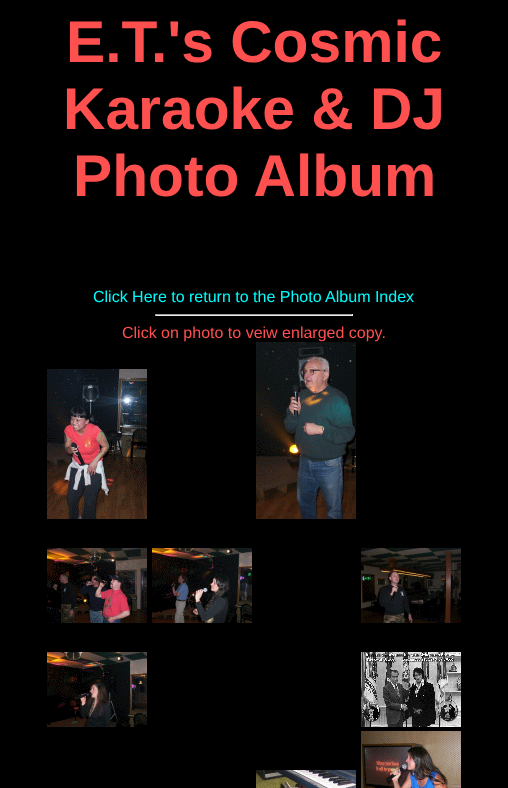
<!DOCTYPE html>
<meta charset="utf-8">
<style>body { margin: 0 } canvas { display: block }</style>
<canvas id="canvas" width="508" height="788"></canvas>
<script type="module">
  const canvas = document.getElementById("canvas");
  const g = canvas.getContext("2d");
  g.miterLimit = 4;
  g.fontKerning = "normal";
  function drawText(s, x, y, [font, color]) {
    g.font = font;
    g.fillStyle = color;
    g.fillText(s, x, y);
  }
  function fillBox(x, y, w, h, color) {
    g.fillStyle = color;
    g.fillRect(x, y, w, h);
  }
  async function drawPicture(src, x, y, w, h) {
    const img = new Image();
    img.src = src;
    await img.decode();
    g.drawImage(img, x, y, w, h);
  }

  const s1 = ["bold 58.75px Liberation Sans", "#FF5050"];
  const s2 = ["16px Liberation Sans", "#00FDFD"];
  const s3 = ["16px Liberation Sans", "#FF5050"];

  fillBox(0, 0, 508, 788, "#000000");
  drawText("E.T.'s Cosmic", 66, 62, s1);
  drawText("Karaoke & DJ", 63, 129, s1);
  drawText("Photo Album", 73, 196, s1);
  drawText("Click Here to return to the Photo Album Index", 93, 302, s2);
  fillBox(155, 314, 198, 1, "#9F9F9F");
  fillBox(352, 314, 1, 2, "#EEEEEE");
  fillBox(155, 315, 198, 1, "#EEEEEE");
  fillBox(155, 314, 1, 2, "#9F9F9F");
  drawText("Click on photo to veiw enlarged copy.", 122, 338, s3);
  await drawPicture("pic1.png", 47, 369, 100, 150);
  await drawPicture("pic2.png", 256, 342, 100, 177);
  await drawPicture("pic3.png", 47, 548, 100, 75);
  await drawPicture("pic4.png", 152, 548, 100, 75);
  await drawPicture("pic5.png", 361, 548, 100, 75);
  await drawPicture("pic6.png", 47, 652, 100, 75);
  await drawPicture("pic7.png", 361, 652, 100, 75);
  await drawPicture("pic8.png", 256, 770, 100, 18);
  await drawPicture("pic9.png", 361, 731, 100, 57);
</script>
